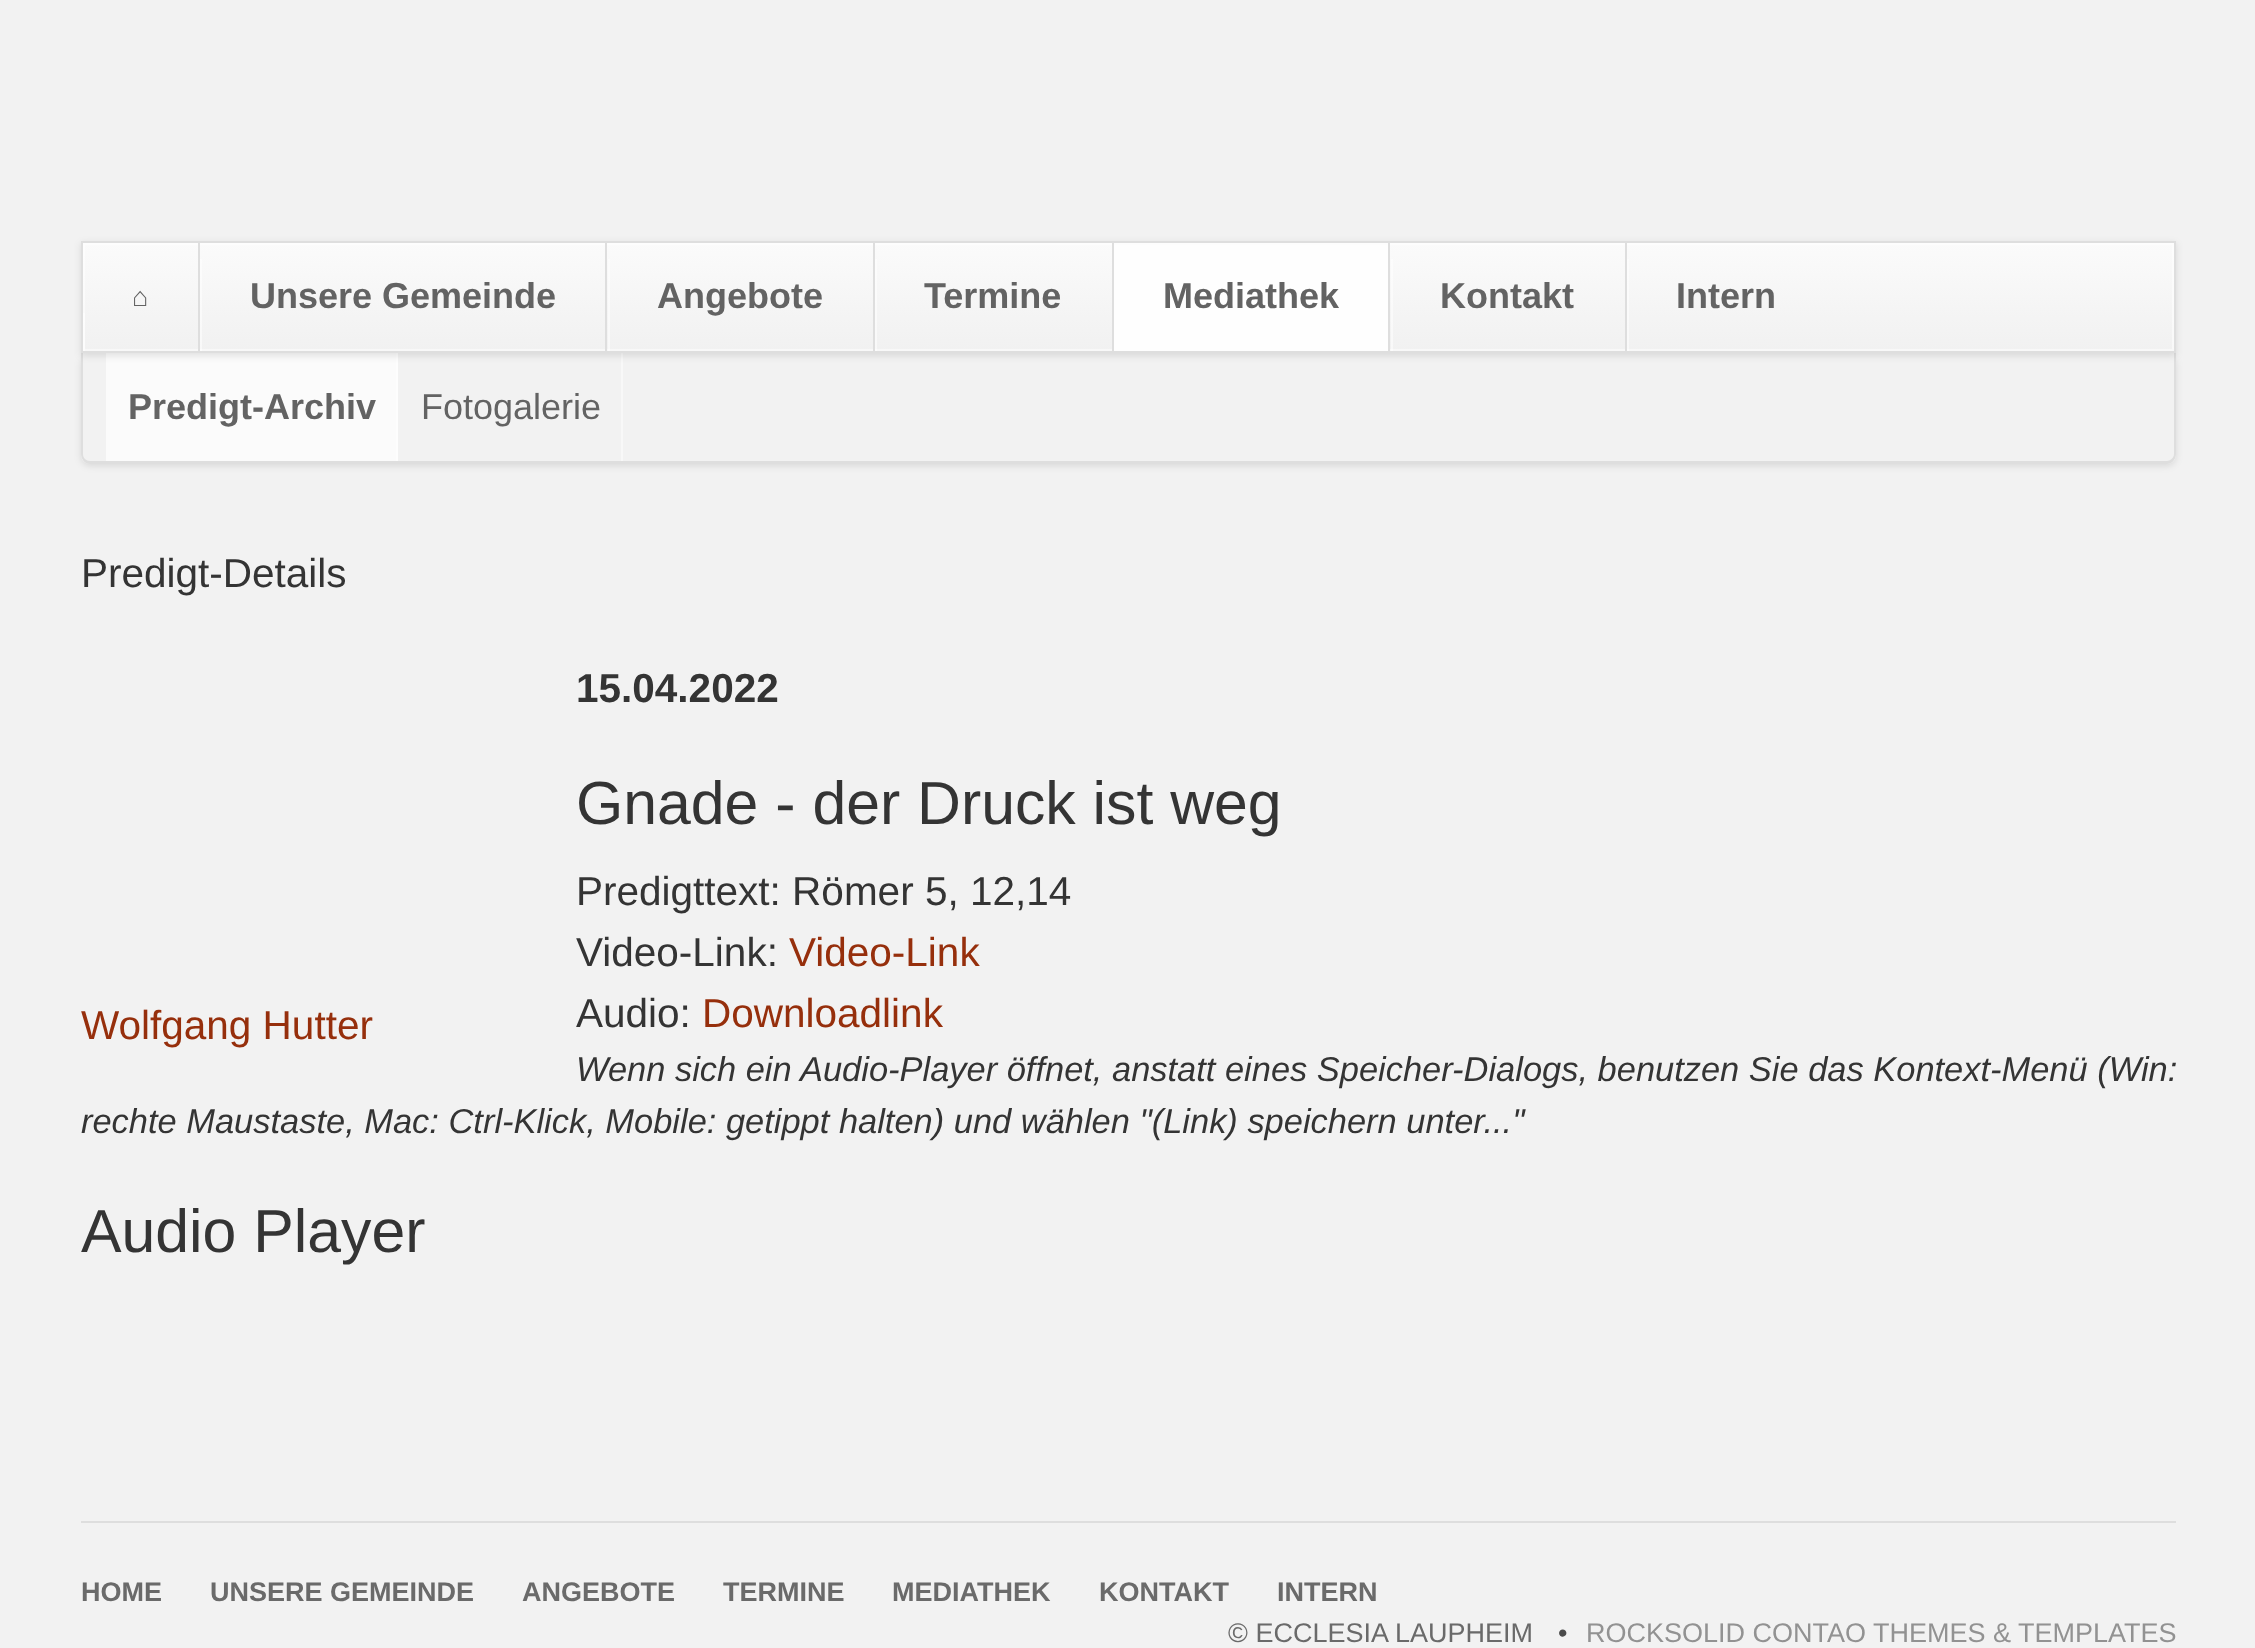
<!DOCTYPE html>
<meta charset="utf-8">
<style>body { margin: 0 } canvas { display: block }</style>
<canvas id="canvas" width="2255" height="1648"></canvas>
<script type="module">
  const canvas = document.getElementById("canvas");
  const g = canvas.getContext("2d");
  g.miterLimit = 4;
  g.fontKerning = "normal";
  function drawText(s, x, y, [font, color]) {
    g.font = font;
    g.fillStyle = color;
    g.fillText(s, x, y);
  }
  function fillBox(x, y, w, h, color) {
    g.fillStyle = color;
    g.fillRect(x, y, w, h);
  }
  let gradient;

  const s1 = ["27px Liberation Serif", "#636363"];
  const s2 = ["bold 36px Liberation Sans", "#636363"];
  const s3 = ["36px Liberation Sans", "#636363"];
  const s4 = ["40.5px Liberation Sans", "#343434"];
  const s5 = ["bold 40.5px Liberation Sans", "#343434"];
  const s6 = ["60.75px Liberation Sans", "#343434"];
  const s7 = ["40.5px Liberation Sans", "#962F0C"];
  const s8 = ["italic 34.45px Liberation Sans", "#343434"];
  const s9 = ["bold 27px Liberation Sans", "#6A6A6A"];
  const s10 = ["27px Liberation Sans", "#6A6A6A"];
  const s11 = ["27px Liberation Sans", "#4A4A4A"];
  const s12 = ["27px Liberation Sans", "#929292"];

  fillBox(0, 0, 2255, 1648, "#F2F2F2");
  g.save();
  g.beginPath();
  g.moveTo(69, 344);
  g.lineTo(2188, 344);
  g.lineTo(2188, 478);
  g.lineTo(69, 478);
  g.closePath();
  g.moveTo(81, 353);
  g.lineTo(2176, 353);
  g.lineTo(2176, 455);
  g.bezierCurveTo(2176, 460, 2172, 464, 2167, 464);
  g.lineTo(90, 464);
  g.bezierCurveTo(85, 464, 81, 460, 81, 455);
  g.closePath();
  g.clip("evenodd");
  g.fillStyle = "rgba(0, 0, 0, 0.1)";
  g.filter = "blur(3.5px)";
  g.beginPath();
  g.roundRect(81, 356, 2095, 110, 9);
  g.fill();
  g.filter = "none";
  g.restore();
  g.fillStyle = "#DEDEDE";
  g.beginPath();
  g.moveTo(81, 353);
  g.lineTo(2176, 353);
  g.lineTo(2176, 454);
  g.bezierCurveTo(2176, 459, 2172, 464, 2167, 464);
  g.lineTo(90, 464);
  g.bezierCurveTo(85, 464, 81, 459, 81, 454);
  g.closePath();
  g.moveTo(83, 353);
  g.lineTo(2174, 353);
  g.lineTo(2174, 454);
  g.bezierCurveTo(2174, 458, 2170, 461, 2167, 461);
  g.lineTo(90, 461);
  g.bezierCurveTo(86, 461, 83, 458, 83, 454);
  g.closePath();
  g.fill("evenodd");
  fillBox(106, 353, 290, 108, "#FBFBFB");
  fillBox(396, 353, 2, 108, "#FDFDFD");
  fillBox(621, 353, 2, 108, "#F8F8F8");
  g.fillStyle = "rgba(0, 0, 0, 0.1)";
  g.filter = "blur(3.5px)";
  g.beginPath();
  g.rect(81, 243, 2095, 113);
  g.fill();
  g.filter = "none";
  gradient = g.createLinearGradient(1128, 243, 1128, 351);
  gradient.addColorStop(0, "#FBFBFB");
  gradient.addColorStop(1, "#F1F1F1");
  g.fillStyle = gradient;
  g.fillRect(83, 243, 2091, 108);
  g.strokeStyle = "rgba(255, 255, 255, 0.5)";
  g.lineWidth = 2;
  g.strokeRect(84, 244, 2089, 106);
  g.strokeStyle = "#DEDEDE";
  g.strokeRect(82, 242, 2093, 110);
  fillBox(83, 313, 2, 38, "rgba(255, 255, 255, 0.5)");
  drawText("⌂", 132, 306, s1);
  fillBox(200, 259, 2, 92, "rgba(255, 255, 255, 0.5)");
  fillBox(198, 243, 2, 108, "#DEDEDE");
  drawText("Unsere Gemeinde", 250, 308, s2);
  fillBox(608, 259, 2, 92, "rgba(255, 255, 255, 0.5)");
  fillBox(605, 243, 2, 108, "#DEDEDE");
  drawText("Angebote", 657, 308, s2);
  fillBox(875, 259, 2, 92, "rgba(255, 255, 255, 0.5)");
  fillBox(873, 243, 2, 108, "#DEDEDE");
  drawText("Termine", 924, 308, s2);
  fillBox(1114, 245, 274, 106, "#FEFEFE");
  fillBox(1112, 243, 2, 108, "#DEDEDE");
  drawText("Mediathek", 1163, 308, s2);
  fillBox(1391, 259, 2, 92, "rgba(255, 255, 255, 0.5)");
  fillBox(1388, 243, 2, 108, "#DEDEDE");
  drawText("Kontakt", 1440, 308, s2);
  fillBox(1627, 259, 2, 92, "rgba(255, 255, 255, 0.5)");
  fillBox(1625, 243, 2, 108, "#DEDEDE");
  drawText("Intern", 1676, 308, s2);
  drawText("Predigt-Archiv", 128, 419, s2);
  drawText("Fotogalerie", 421, 419, s3);
  drawText("Predigt-Details", 81, 587, s4);
  drawText("15.04.2022", 576, 702, s5);
  drawText("Gnade - der Druck ist weg", 576, 824, s6);
  drawText("Predigttext: Römer 5, 12,14", 576, 905, s4);
  drawText("Video-Link:", 576, 966, s4);
  drawText("Video-Link", 789, 966, s7);
  drawText("Audio:", 576, 1027, s4);
  drawText("Downloadlink", 702, 1027, s7);
  drawText("Wenn sich ein Audio-Player öffnet, anstatt eines Speicher-Dialogs, benutzen Sie das Kontext-Menü (Win:", 576, 1081, s8);
  drawText("rechte Maustaste, Mac: Ctrl-Klick, Mobile: getippt halten) und wählen \"(Link) speichern unter...\"", 81, 1133, s8);
  drawText("Wolfgang Hutter", 81, 1039, s7);
  drawText("Audio Player", 81, 1252, s6);
  fillBox(81, 1521, 2095, 2, "#DEDEDE");
  drawText("HOME", 81, 1601, s9);
  drawText("UNSERE GEMEINDE", 210, 1601, s9);
  drawText("ANGEBOTE", 522, 1601, s9);
  drawText("TERMINE", 723, 1601, s9);
  drawText("MEDIATHEK", 892, 1601, s9);
  drawText("KONTAKT", 1099, 1601, s9);
  drawText("INTERN", 1277, 1601, s9);
  drawText("© ECCLESIA LAUPHEIM", 1228, 1642, s10);
  drawText("•", 1558, 1642, s11);
  drawText("ROCKSOLID CONTAO THEMES & TEMPLATES", 1586, 1642, s12);
</script>
